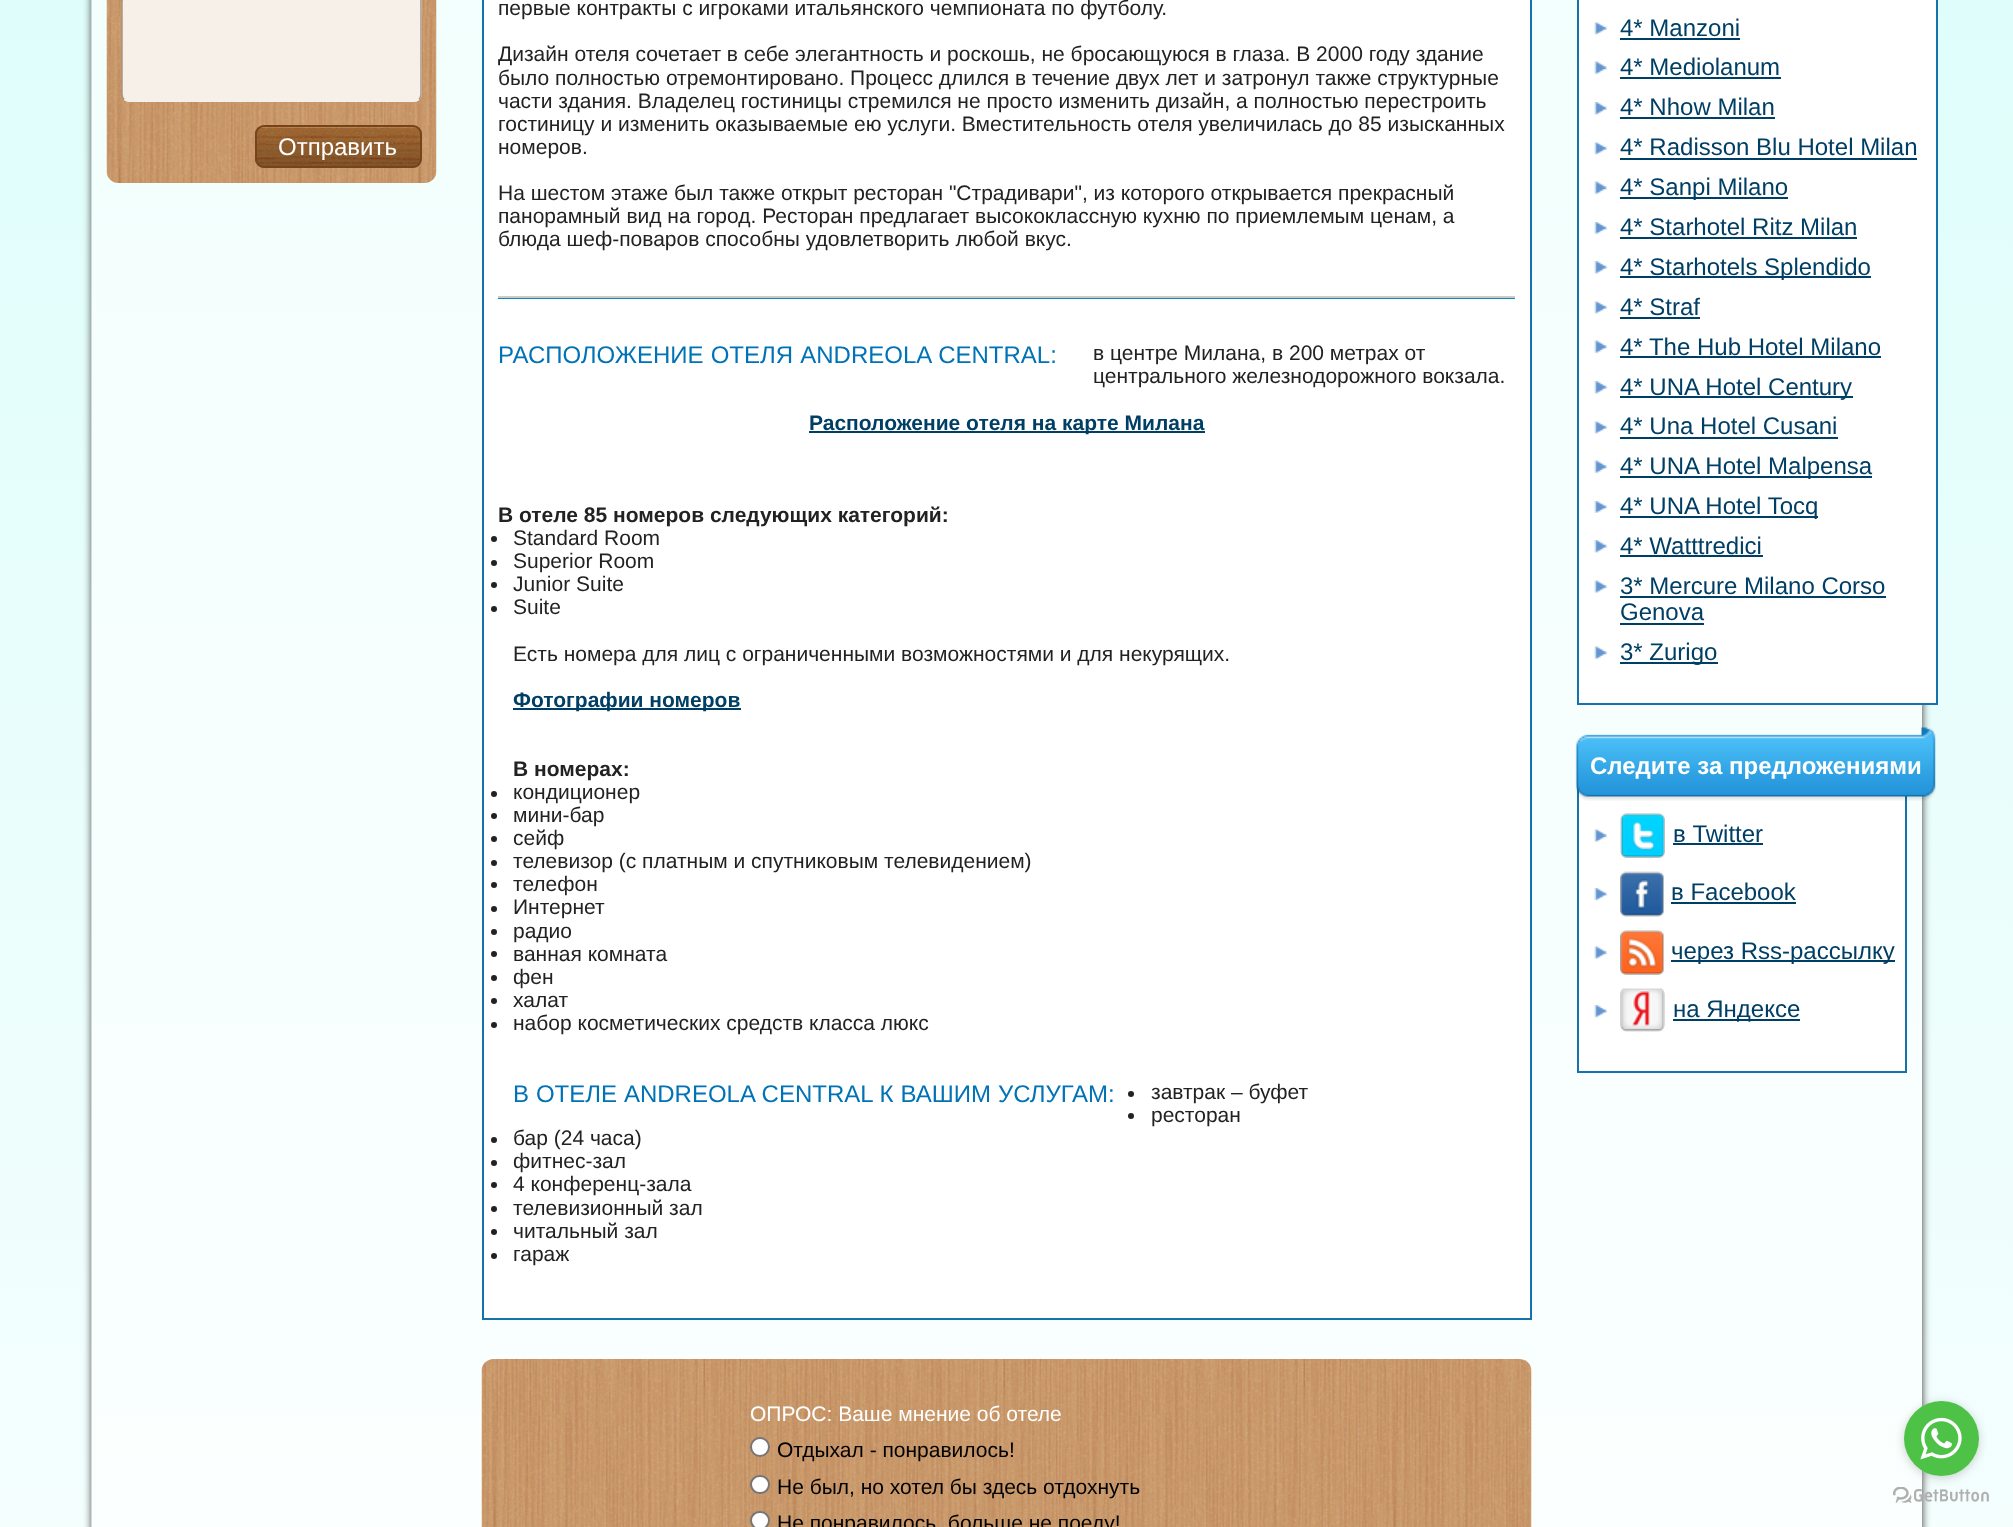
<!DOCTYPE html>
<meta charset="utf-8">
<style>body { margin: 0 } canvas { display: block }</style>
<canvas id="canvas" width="2013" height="1527"></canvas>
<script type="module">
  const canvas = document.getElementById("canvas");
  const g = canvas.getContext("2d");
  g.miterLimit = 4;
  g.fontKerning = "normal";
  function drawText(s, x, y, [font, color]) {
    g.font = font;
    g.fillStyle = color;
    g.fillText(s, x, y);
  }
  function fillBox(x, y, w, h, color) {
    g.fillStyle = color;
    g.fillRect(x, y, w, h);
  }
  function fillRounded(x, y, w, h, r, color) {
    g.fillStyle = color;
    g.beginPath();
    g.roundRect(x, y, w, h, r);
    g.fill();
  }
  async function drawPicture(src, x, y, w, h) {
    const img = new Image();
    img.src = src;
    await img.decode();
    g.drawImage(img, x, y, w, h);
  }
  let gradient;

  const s1 = ["24px Liberation Sans", "#FFFFFF"];
  const s2 = ["21px Liberation Sans", "#222222"];
  const s3 = ["24px Liberation Sans", "#0072B6"];
  const s4 = ["bold 21px Liberation Sans", "#003F65"];
  const s5 = ["bold 21px Liberation Sans", "#222222"];
  const s6 = ["21px Liberation Sans", "#FFFFFF"];
  const s7 = ["21px Liberation Sans", "#000000"];
  const s8 = ["24px Liberation Sans", "#003F65"];
  const s9 = ["bold 24px Liberation Sans", "#FFFFFF"];

  fillBox(0, 0, 2013, 1527, "#FFFFFF");
  gradient = g.createLinearGradient(1006, -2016, 1007, 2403);
  gradient.addColorStop(0, "#0283D4");
  gradient.addColorStop(0.1, "#55EBF5");
  gradient.addColorStop(0.2, "#D0FDF9");
  gradient.addColorStop(1, "#FFFFFF");
  g.fillStyle = gradient;
  g.fillRect(0, 0, 2013, 1527);
  g.save();
  g.beginPath();
  g.moveTo(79, 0);
  g.lineTo(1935, 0);
  g.lineTo(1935, 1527);
  g.lineTo(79, 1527);
  g.closePath();
  g.moveTo(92, -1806);
  g.lineTo(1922, -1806);
  g.lineTo(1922, 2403);
  g.lineTo(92, 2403);
  g.closePath();
  g.clip("evenodd");
  g.fillStyle = "#333333";
  g.filter = "blur(4px)";
  g.beginPath();
  g.rect(92, -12, 1830, 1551);
  g.fill();
  g.filter = "none";
  g.restore();
  fillBox(91, 0, 1831, 1527, "rgba(255, 255, 255, 0.6)");
  await drawPicture("pic1.png", 106, 0, 331, 183);
  fillRounded(122, -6, 300, 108, 8, "#F7F0E8");
  g.beginPath();
  g.moveTo(419, 99.5);
  g.bezierCurveTo(417.5, 100.5, 416, 101, 414, 101);
  g.lineTo(129, 101);
  g.bezierCurveTo(127, 101, 125.5, 100.5, 124, 99.5);
  g.strokeStyle = "#F5F0EA";
  g.lineWidth = 1.5;
  g.stroke();
  g.beginPath();
  g.moveTo(124, 99.5);
  g.bezierCurveTo(123, 98, 122, 96.5, 122, 94.5);
  g.lineTo(122, 1.5);
  g.bezierCurveTo(122, -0.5, 123, -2, 124, -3.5);
  g.bezierCurveTo(125.5, -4.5, 127, -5, 129, -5);
  g.lineTo(414, -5);
  g.bezierCurveTo(416, -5, 417.5, -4.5, 419, -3.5);
  g.bezierCurveTo(420, -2, 421, -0.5, 421, 1.5);
  g.lineTo(421, 94.5);
  g.bezierCurveTo(421, 96.5, 420, 98, 419, 99.5);
  g.strokeStyle = "#AA9580";
  g.stroke();
  await drawPicture("pic2.png", 255, 126, 167, 42);
  g.beginPath();
  g.roundRect(256, 126, 165, 41, 8);
  g.strokeStyle = "#75441E";
  g.lineWidth = 2;
  g.stroke();
  drawText("Отправить", 278, 155, s1);
  g.beginPath();
  g.rect(483, -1, 1048, 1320);
  g.fill();
  g.strokeStyle = "#1473AB";
  g.stroke();
  drawText("первые контракты с игроками итальянского чемпионата по футболу.", 498, 15, s2);
  drawText("Дизайн отеля сочетает в себе элегантность и роскошь, не бросающуюся в глаза. В 2000 году здание", 498, 61, s2);
  drawText("было полностью отремонтировано. Процесс длился в течение двух лет и затронул также структурные", 498, 85, s2);
  drawText("части здания. Владелец гостиницы стремился не просто изменить дизайн, а полностью перестроить", 498, 108, s2);
  drawText("гостиницу и изменить оказываемые ею услуги. Вместительность отеля увеличилась до 85 изысканных", 498, 131, s2);
  drawText("номеров.", 498, 154, s2);
  drawText("На шестом этаже был также открыт ресторан \"Страдивари\", из которого открывается прекрасный", 498, 200, s2);
  drawText("панорамный вид на город. Ресторан предлагает высококлассную кухню по приемлемым ценам, а", 498, 223, s2);
  drawText("блюда шеф-поваров способны удовлетворить любой вкус.", 498, 246, s2);
  fillBox(498, 298, 1017, 1, "#128BB4");
  fillBox(498, 296, 1017, 2, "#CCCCCC");
  g.wordSpacing = "0.5px";
  drawText("РАСПОЛОЖЕНИЕ ОТЕЛЯ ANDREOLA CENTRAL:", 498, 363, s3);
  g.wordSpacing = "0px";
  drawText("в центре Милана, в 200 метрах от", 1093, 360, s2);
  drawText("центрального железнодорожного вокзала.", 1093, 383, s2);
  fillBox(809, 431, 396, 2, "#003F65");
  drawText("Расположение отеля на карте Милана", 809, 430, s4);
  drawText("В отеле 85 номеров следующих категорий:", 498, 522, s5);
  g.beginPath();
  g.arc(494, 539, 3, 0, Math.PI * 2);
  g.fill();
  drawText("Standard Room", 513, 545, s2);
  g.beginPath();
  g.arc(494, 563, 3, 0, Math.PI * 2);
  g.fill();
  drawText("Superior Room", 513, 568, s2);
  g.beginPath();
  g.arc(494, 585, 3, 0, Math.PI * 2);
  g.fill();
  drawText("Junior Suite", 513, 591, s2);
  g.beginPath();
  g.arc(494, 609, 3, 0, Math.PI * 2);
  g.fill();
  drawText("Suite", 513, 614, s2);
  drawText("Есть номера для лиц с ограниченными возможностями и для некурящих.", 513, 661, s2);
  fillBox(513, 708, 228, 2, "#003F65");
  drawText("Фотографии номеров", 513, 707, s4);
  drawText("В номерах:", 513, 776, s5);
  g.beginPath();
  g.arc(494, 794, 3, 0, Math.PI * 2);
  g.fill();
  drawText("кондиционер", 513, 799, s2);
  g.beginPath();
  g.arc(494, 816, 3, 0, Math.PI * 2);
  g.fill();
  drawText("мини-бар", 513, 822, s2);
  g.beginPath();
  g.arc(494, 839, 3, 0, Math.PI * 2);
  g.fill();
  drawText("сейф", 513, 845, s2);
  g.beginPath();
  g.arc(494, 863, 3, 0, Math.PI * 2);
  g.fill();
  drawText("телевизор (с платным и спутниковым телевидением)", 513, 868, s2);
  g.beginPath();
  g.arc(494, 885, 3, 0, Math.PI * 2);
  g.fill();
  drawText("телефон", 513, 891, s2);
  g.beginPath();
  g.arc(494, 909, 3, 0, Math.PI * 2);
  g.fill();
  drawText("Интернет", 513, 914, s2);
  g.beginPath();
  g.arc(494, 932, 3, 0, Math.PI * 2);
  g.fill();
  drawText("радио", 513, 938, s2);
  g.beginPath();
  g.arc(494, 954, 3, 0, Math.PI * 2);
  g.fill();
  drawText("ванная комната", 513, 961, s2);
  g.beginPath();
  g.arc(494, 978, 3, 0, Math.PI * 2);
  g.fill();
  drawText("фен", 513, 984, s2);
  g.beginPath();
  g.arc(494, 1001, 3, 0, Math.PI * 2);
  g.fill();
  drawText("халат", 513, 1007, s2);
  g.beginPath();
  g.arc(494, 1025, 3, 0, Math.PI * 2);
  g.fill();
  drawText("набор косметических средств класса люкс", 513, 1030, s2);
  g.wordSpacing = "0.25px";
  drawText("В ОТЕЛЕ ANDREOLA CENTRAL К ВАШИМ УСЛУГАМ:", 513, 1102, s3);
  g.fillStyle = "#222222";
  g.beginPath();
  g.arc(1131, 1094, 3, 0, Math.PI * 2);
  g.fill();
  g.wordSpacing = "0px";
  drawText("завтрак – буфет", 1151, 1099, s2);
  g.beginPath();
  g.arc(1131, 1116, 3, 0, Math.PI * 2);
  g.fill();
  drawText("ресторан", 1151, 1122, s2);
  g.beginPath();
  g.arc(494, 1140, 3, 0, Math.PI * 2);
  g.fill();
  drawText("бар (24 часа)", 513, 1145, s2);
  g.beginPath();
  g.arc(494, 1163, 3, 0, Math.PI * 2);
  g.fill();
  drawText("фитнес-зал", 513, 1168, s2);
  g.beginPath();
  g.arc(494, 1185, 3, 0, Math.PI * 2);
  g.fill();
  drawText("4 конференц-зала", 513, 1191, s2);
  g.beginPath();
  g.arc(494, 1209, 3, 0, Math.PI * 2);
  g.fill();
  drawText("телевизионный зал", 513, 1215, s2);
  g.beginPath();
  g.arc(494, 1232, 3, 0, Math.PI * 2);
  g.fill();
  drawText("читальный зал", 513, 1238, s2);
  g.beginPath();
  g.arc(494, 1256, 3, 0, Math.PI * 2);
  g.fill();
  drawText("гараж", 513, 1261, s2);
  await drawPicture("pic3.png", 481, 1359, 1051, 168);
  drawText("ОПРОС: Ваше мнение об отеле", 750, 1421, s6);
  g.beginPath();
  g.arc(760, 1447, 9, 0, Math.PI * 2);
  g.fill();
  g.strokeStyle = "#767676";
  g.stroke();
  drawText("Отдыхал - понравилось!", 777, 1457, s7);
  g.fillStyle = "#FFFFFF";
  g.beginPath();
  g.roundRect(751, 1476, 18, 17, 8.5);
  g.fill();
  g.stroke();
  drawText("Не был, но хотел бы здесь отдохнуть", 777, 1494, s7);
  g.fillStyle = "#FFFFFF";
  g.beginPath();
  g.roundRect(751, 1512, 18, 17, 8.5);
  g.fill();
  g.stroke();
  drawText("Не понравилось, больше не поеду!", 777, 1530, s7);
  g.fillStyle = "#FFFFFF";
  g.beginPath();
  g.rect(1578, -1, 359, 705);
  g.fill();
  g.strokeStyle = "#1572AA";
  g.stroke();
  await drawPicture("pic4.png", 1594, 22, 14, 13);
  drawText("4* Manzoni", 1620, 36, s8);
  fillBox(1620, 38, 120, 2, "#003F65");
  await drawPicture("pic5.png", 1594, 61, 14, 14);
  drawText("4* Mediolanum", 1620, 75, s8);
  fillBox(1620, 77, 161, 2, "#003F65");
  await drawPicture("pic6.png", 1594, 102, 14, 13);
  drawText("4* Nhow Milan", 1620, 115, s8);
  fillBox(1620, 117, 155, 2, "#003F65");
  await drawPicture("pic4.png", 1594, 142, 14, 13);
  drawText("4* Radisson Blu Hotel Milan", 1620, 155, s8);
  fillBox(1620, 158, 297, 2, "#003F65");
  await drawPicture("pic5.png", 1594, 181, 14, 14);
  fillBox(1620, 197, 168, 2, "#003F65");
  drawText("4* Sanpi Milano", 1620, 195, s8);
  await drawPicture("pic7.png", 1594, 222, 14, 12);
  drawText("4* Starhotel Ritz Milan", 1620, 235, s8);
  fillBox(1620, 237, 237, 2, "#003F65");
  await drawPicture("pic6.png", 1594, 261, 14, 13);
  fillBox(1620, 276, 251, 2, "#003F65");
  drawText("4* Starhotels Splendido", 1620, 275, s8);
  await drawPicture("pic4.png", 1594, 301, 14, 13);
  drawText("4* Straf", 1620, 315, s8);
  fillBox(1620, 317, 80, 2, "#003F65");
  await drawPicture("pic5.png", 1594, 340, 14, 14);
  drawText("4* The Hub Hotel Milano", 1620, 355, s8);
  fillBox(1620, 356, 261, 2, "#003F65");
  await drawPicture("pic6.png", 1594, 381, 14, 13);
  fillBox(1620, 396, 233, 2, "#003F65");
  drawText("4* UNA Hotel Century", 1620, 395, s8);
  await drawPicture("pic4.png", 1594, 421, 14, 13);
  drawText("4* Una Hotel Cusani", 1620, 434, s8);
  fillBox(1620, 437, 218, 2, "#003F65");
  await drawPicture("pic5.png", 1594, 460, 14, 14);
  fillBox(1620, 476, 252, 2, "#003F65");
  drawText("4* UNA Hotel Malpensa", 1620, 474, s8);
  await drawPicture("pic7.png", 1594, 501, 14, 12);
  fillBox(1620, 516, 198, 2, "#003F65");
  drawText("4* UNA Hotel Tocq", 1620, 514, s8);
  await drawPicture("pic6.png", 1594, 540, 14, 13);
  drawText("4* Watttredici", 1620, 554, s8);
  fillBox(1620, 555, 143, 2, "#003F65");
  await drawPicture("pic8.png", 1594, 580, 14, 13);
  drawText("3* Mercure Milano Corso", 1620, 594, s8);
  fillBox(1620, 596, 266, 2, "#003F65");
  drawText("Genova", 1620, 620, s8);
  fillBox(1620, 623, 84, 2, "#003F65");
  await drawPicture("pic5.png", 1594, 646, 14, 14);
  fillBox(1620, 662, 98, 2, "#003F65");
  drawText("3* Zurigo", 1620, 660, s8);
  fillBox(1579, 789, 326, 282, "#FFFFFF");
  g.strokeRect(1578, 784, 328, 288);
  await drawPicture("pic9.png", 1575, 727, 361, 74);
  drawText("Следите за предложениями", 1590, 774, s9);
  await drawPicture("pic8.png", 1594, 829, 14, 13);
  await drawPicture("pic10.png", 1620, 813, 45, 45);
  drawText("в Twitter", 1673, 842, s8);
  fillBox(1673, 843, 90, 2, "#003F65");
  await drawPicture("pic11.png", 1594, 888, 14, 13);
  await drawPicture("pic12.png", 1620, 871, 44, 46);
  drawText("в Facebook", 1671, 900, s8);
  fillBox(1671, 902, 125, 2, "#003F65");
  await drawPicture("pic8.png", 1594, 946, 14, 13);
  await drawPicture("pic13.png", 1620, 930, 44, 45);
  fillBox(1671, 960, 224, 2, "#003F65");
  drawText("через Rss-рассылку", 1671, 959, s8);
  await drawPicture("pic11.png", 1594, 1005, 14, 13);
  await drawPicture("pic14.png", 1620, 988, 45, 44);
  fillBox(1673, 1019, 127, 2, "#003F65");
  drawText("на Яндексе", 1673, 1017, s8);
  await drawPicture("pic16.png", 1893, 1487, 96, 16);
  g.fillStyle = "rgba(136, 136, 136, 0.4)";
  g.filter = "blur(5px)";
  g.beginPath();
  g.roundRect(1904, 1403, 75, 75, 37.5);
  g.fill();
  g.filter = "none";
  g.fillStyle = "#4DC247";
  g.beginPath();
  g.arc(1941.5, 1438.5, 37.5, 0, Math.PI * 2);
  g.fill();
  await drawPicture("pic15.png", 1920, 1417, 42, 43);
</script>
